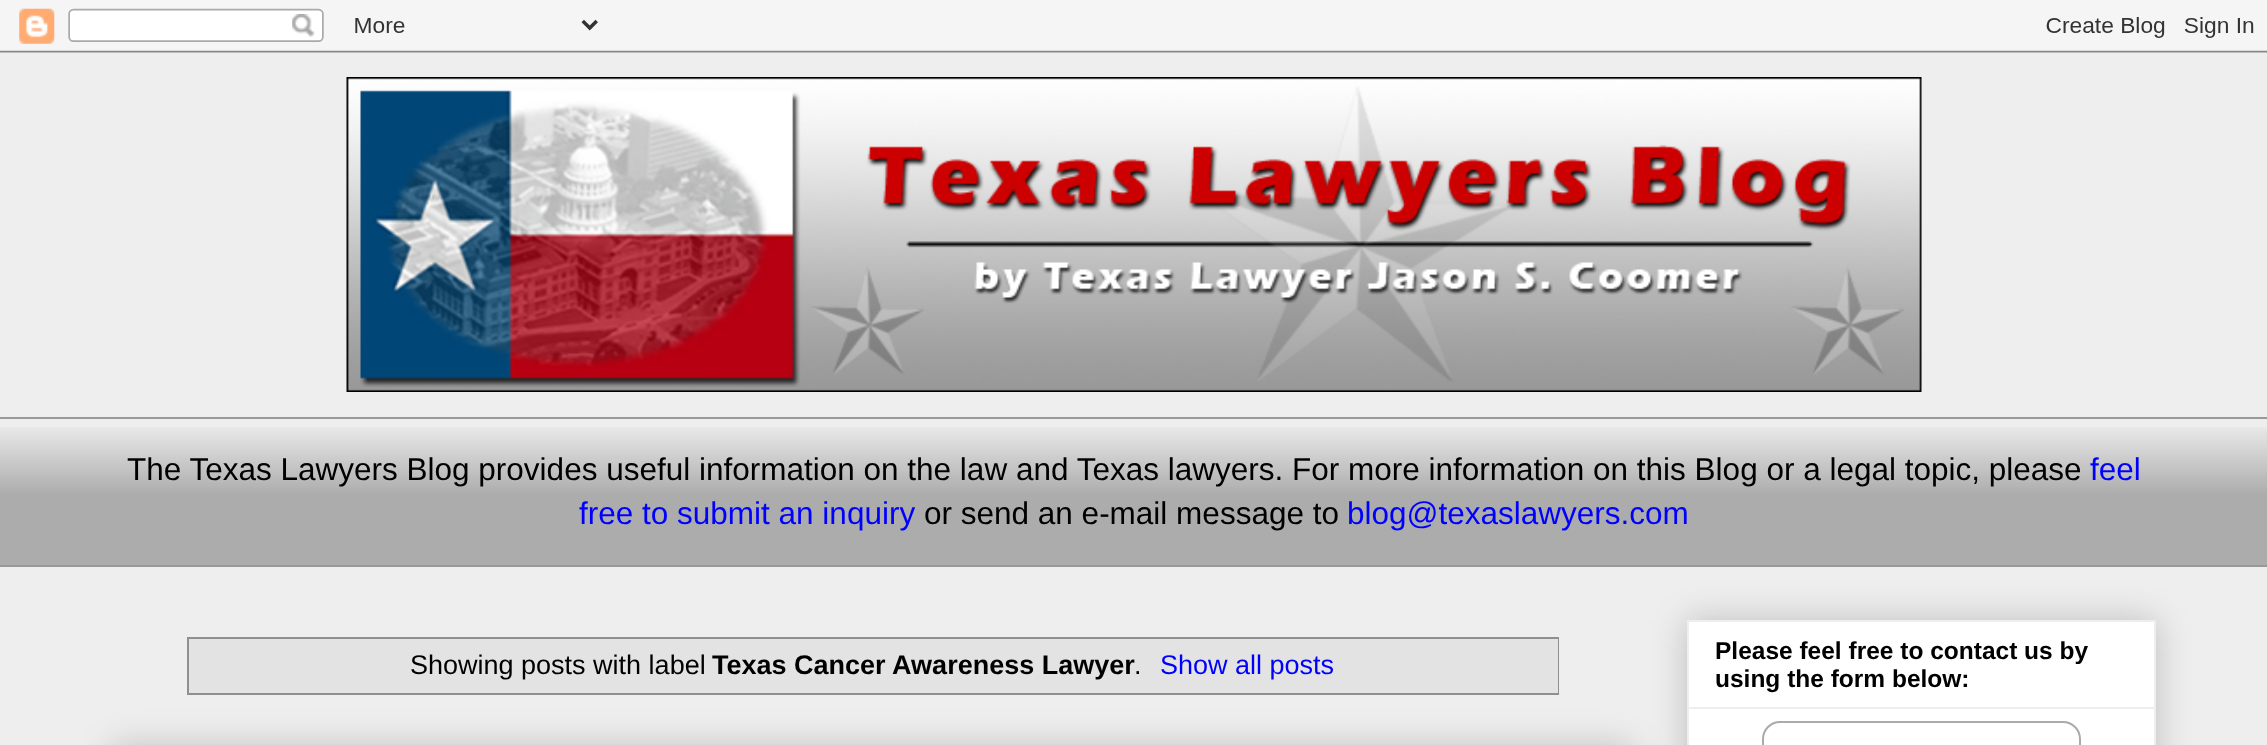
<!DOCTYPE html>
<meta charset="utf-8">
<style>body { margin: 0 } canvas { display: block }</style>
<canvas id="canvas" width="2267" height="745"></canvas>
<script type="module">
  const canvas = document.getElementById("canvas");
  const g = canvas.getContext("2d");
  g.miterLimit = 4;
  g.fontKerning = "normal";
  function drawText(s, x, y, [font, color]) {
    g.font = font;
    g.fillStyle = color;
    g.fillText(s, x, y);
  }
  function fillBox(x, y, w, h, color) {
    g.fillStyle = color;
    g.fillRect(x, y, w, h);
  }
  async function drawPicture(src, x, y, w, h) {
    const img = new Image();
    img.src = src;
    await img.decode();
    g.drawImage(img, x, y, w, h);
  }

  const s1 = ["31.5px Liberation Sans", "#000000"];
  const s2 = ["31.5px Liberation Sans", "#0000FF"];
  const s3 = ["27px Liberation Sans", "#000000"];
  const s4 = ["bold 27px Liberation Sans", "#000000"];
  const s5 = ["27px Liberation Sans", "#0000FF"];
  const s6 = ["bold 24.5px Liberation Sans", "#000000"];

  fillBox(0, 0, 2267, 745, "#EEEEEE");
  await drawPicture("pic1.png", 0, 0, 2267, 53);
  await drawPicture("pic2.png", 346, 77, 1576, 315);
  await drawPicture("pic3.png", 0, 427, 2267, 138);
  fillBox(0, 417, 2267, 2, "#999999");
  drawText("The Texas Lawyers Blog provides useful information on the law and Texas lawyers. For more information on this Blog or a legal topic, please", 127, 480, s1);
  drawText("feel", 2090, 480, s2);
  drawText("free to submit an inquiry", 579, 524, s2);
  drawText("or send an e-mail message to", 924, 524, s1);
  drawText("blog@texaslawyers.com", 1347, 524, s2);
  fillBox(0, 565, 2267, 2, "#999999");
  g.strokeStyle = "#8F8F8F";
  g.lineWidth = 2;
  g.strokeRect(188, 638, 1370, 56);
  fillBox(189, 639, 1369, 54, "#E3E3E3");
  drawText("Showing posts with label", 410, 674, s3);
  drawText("Texas Cancer Awareness Lawyer", 712, 674, s4);
  drawText(".", 1134, 674, s3);
  drawText("Show all posts", 1160, 674, s5);
  g.fillStyle = "rgba(0, 0, 0, 0.2)";
  g.filter = "blur(17.5px)";
  g.beginPath();
  g.rect(112, 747, 1519, 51);
  g.fill();
  g.filter = "none";
  g.filter = "blur(17.5px)";
  g.beginPath();
  g.rect(1687, 620, 469, 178);
  g.fill();
  g.filter = "none";
  g.fillStyle = "#FFFFFF";
  g.beginPath();
  g.rect(1688, 621, 467, 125);
  g.fill();
  g.strokeStyle = "#EEEEEE";
  g.stroke();
  drawText("Please feel free to contact us by", 1715, 659, s6);
  drawText("using the form below:", 1715, 687, s6);
  fillBox(1689, 707, 465, 2, "#EEEEEE");
  g.beginPath();
  g.roundRect(1763, 722, 317, 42, 17);
  g.strokeStyle = "#AAAAAA";
  g.stroke();
</script>
